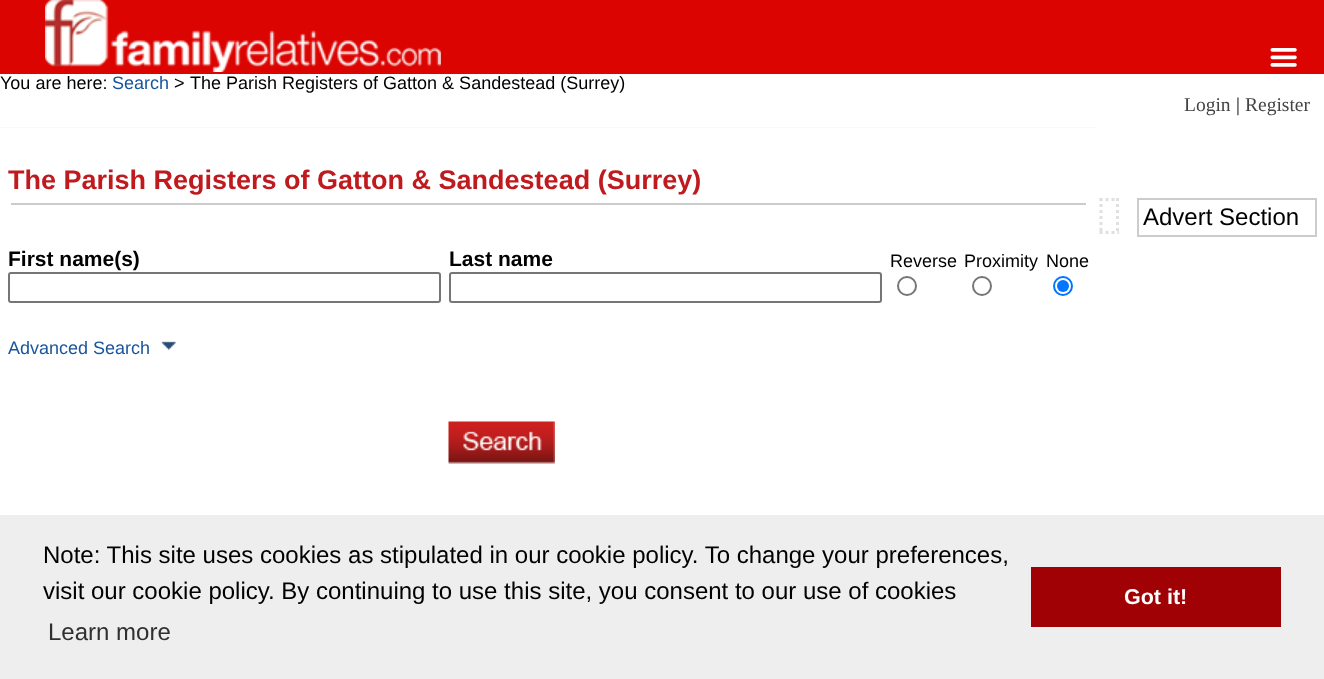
<!DOCTYPE html>
<meta charset="utf-8">
<style>body { margin: 0 } canvas { display: block }</style>
<canvas id="canvas" width="1324" height="679"></canvas>
<script type="module">
  const canvas = document.getElementById("canvas");
  const g = canvas.getContext("2d");
  g.miterLimit = 4;
  g.fontKerning = "normal";
  function drawText(s, x, y, [font, color]) {
    g.font = font;
    g.fillStyle = color;
    g.fillText(s, x, y);
  }
  function fillBox(x, y, w, h, color) {
    g.fillStyle = color;
    g.fillRect(x, y, w, h);
  }
  async function drawPicture(src, x, y, w, h) {
    const img = new Image();
    img.src = src;
    await img.decode();
    g.drawImage(img, x, y, w, h);
  }

  const s1 = ["18px Liberation Sans", "#000000"];
  const s2 = ["18px Liberation Sans", "#19559D"];
  const s3 = ["19.5px Liberation Serif", "#444444"];
  const s4 = ["19.5px Liberation Serif", "#000000"];
  const s5 = ["bold 27px Liberation Sans", "#BF1A1E"];
  const s6 = ["bold 21px Liberation Sans", "#000000"];
  const s7 = ["24px Liberation Sans", "#000000"];
  const s8 = ["24px Liberation Sans", "#303030"];
  const s9 = ["bold 21.5px Liberation Sans", "#FFFFFF"];

  fillBox(0, 0, 1324, 679, "#FFFFFF");
  drawText("You are here:", 0, 89, s1);
  drawText("Search", 112, 89, s2);
  drawText(">", 174, 89, s1);
  drawText("The Parish Registers of Gatton & Sandestead (Surrey)", 190, 89, s1);
  fillBox(0, 0, 1324, 74, "#DB0400");
  await drawPicture("pic1.png", 45, 0, 396, 72);
  await drawPicture("pic2.png", 1270, 48, 27, 19);
  drawText("Login", 1184, 111, s3);
  drawText("|", 1236, 111, s4);
  drawText("Register", 1245, 111, s3);
  await drawPicture("pic3.png", 0, 127, 1097, 1);
  drawText("The Parish Registers of Gatton & Sandestead (Surrey)", 8, 189, s5);
  fillBox(11, 203, 1075, 2, "#CCCCCC");
  drawText("First name(s)", 8, 266, s6);
  drawText("Last name", 449, 266, s6);
  drawText("Reverse", 890, 267, s1);
  drawText("Proximity", 964, 267, s1);
  drawText("None", 1046, 267, s1);
  g.beginPath();
  g.roundRect(9, 273, 431, 29, 2);
  g.strokeStyle = "#767676";
  g.lineWidth = 2;
  g.stroke();
  g.beginPath();
  g.roundRect(450, 273, 431, 29, 2);
  g.stroke();
  g.beginPath();
  g.arc(907, 286, 9, 0, Math.PI * 2);
  g.stroke();
  g.beginPath();
  g.arc(982, 286, 9, 0, Math.PI * 2);
  g.stroke();
  g.beginPath();
  g.arc(1063, 286, 9, 0, Math.PI * 2);
  g.strokeStyle = "#0075FF";
  g.stroke();
  g.fillStyle = "#0075FF";
  g.beginPath();
  g.arc(1063, 286, 6, 0, Math.PI * 2);
  g.fill();
  drawText("Advanced Search", 8, 354, s2);
  await drawPicture("pic4.png", 161, 341, 15, 9);
  fillBox(449, 422, 106, 42, "#EFEFEF");
  await drawPicture("pic5.png", 448, 421, 107, 43);
  g.beginPath();
  g.moveTo(1099.5, 199.5);
  g.lineTo(1102.5, 199.5);
  g.moveTo(1105.5, 199.5);
  g.lineTo(1108.5, 199.5);
  g.moveTo(1111.5, 199.5);
  g.lineTo(1114.5, 199.5);
  g.moveTo(1117.5, 199.5);
  g.lineTo(1119, 199.5);
  g.strokeStyle = "#E0E0E0";
  g.lineWidth = 3;
  g.stroke();
  g.beginPath();
  g.moveTo(1117.5, 198);
  g.lineTo(1117.5, 234);
  g.setLineDash([3, 3]);
  g.stroke();
  g.beginPath();
  g.moveTo(1099.5, 232.5);
  g.lineTo(1102.5, 232.5);
  g.moveTo(1105.5, 232.5);
  g.lineTo(1108.5, 232.5);
  g.moveTo(1111.5, 232.5);
  g.lineTo(1114.5, 232.5);
  g.moveTo(1117.5, 232.5);
  g.lineTo(1119, 232.5);
  g.setLineDash([]);
  g.stroke();
  g.beginPath();
  g.moveTo(1101, 198);
  g.lineTo(1101, 234);
  g.setLineDash([3, 3]);
  g.stroke();
  g.strokeStyle = "#CCCCCC";
  g.lineWidth = 2;
  g.setLineDash([]);
  g.strokeRect(1138, 199, 178, 37);
  drawText("Advert Section", 1143, 225, s7);
  fillBox(0, 515, 1324, 164, "#EEEEEE");
  drawText("Note: This site uses cookies as stipulated in our cookie policy. To change your preferences,", 43, 563, s7);
  drawText("visit our cookie policy. By continuing to use this site, you consent to our use of cookies", 43, 599, s7);
  drawText("Learn more", 48, 640, s8);
  fillBox(1031, 567, 250, 60, "#A00105");
  drawText("Got it!", 1124, 604, s9);
</script>
